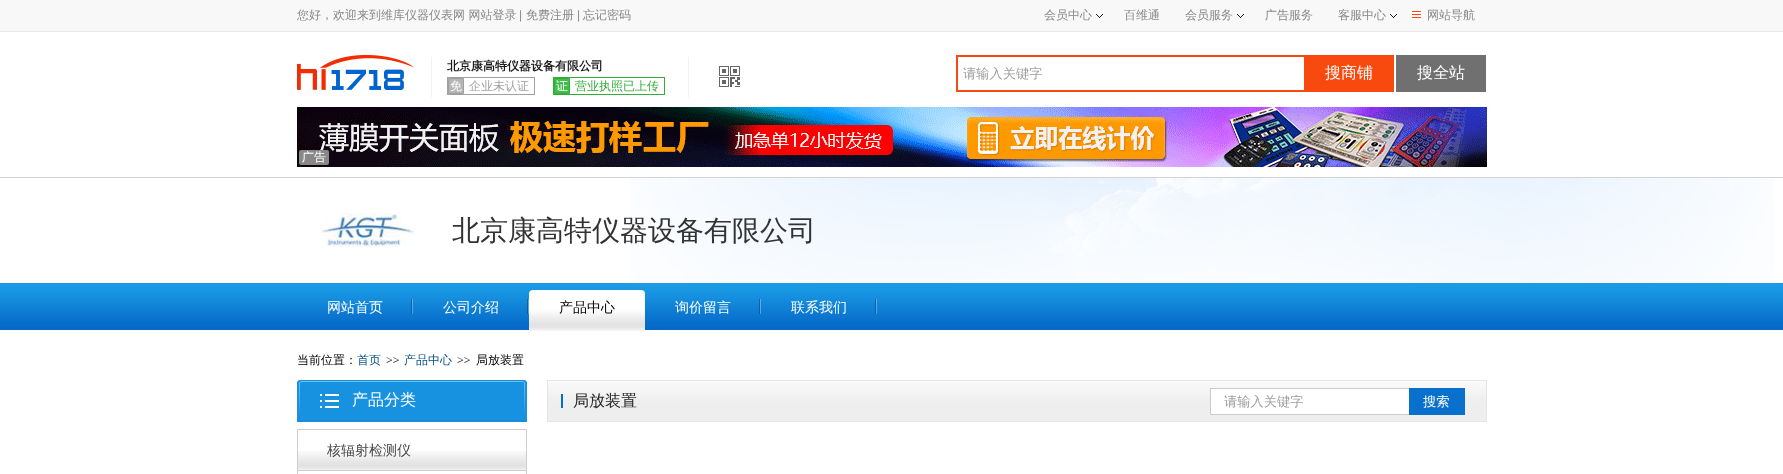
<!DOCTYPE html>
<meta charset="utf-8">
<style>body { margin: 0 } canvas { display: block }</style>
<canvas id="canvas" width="1783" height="474"></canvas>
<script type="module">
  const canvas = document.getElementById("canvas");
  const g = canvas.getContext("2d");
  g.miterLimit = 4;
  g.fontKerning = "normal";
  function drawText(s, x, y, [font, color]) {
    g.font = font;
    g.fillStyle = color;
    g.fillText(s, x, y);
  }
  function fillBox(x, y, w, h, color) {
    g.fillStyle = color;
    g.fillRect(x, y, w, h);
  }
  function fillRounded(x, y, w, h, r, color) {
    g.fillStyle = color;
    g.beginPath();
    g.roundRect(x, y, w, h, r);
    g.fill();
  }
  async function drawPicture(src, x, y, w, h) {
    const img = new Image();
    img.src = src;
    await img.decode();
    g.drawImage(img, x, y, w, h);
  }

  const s1 = ["500 12px WenQuanYi Zen Hei", "#888888"];
  const s2 = ["12px Liberation Sans", "#888888"];
  const s3 = ["bold 12px WenQuanYi Zen Hei", "#1B1B1B"];
  const s4 = ["500 12px WenQuanYi Zen Hei", "#FFFFFF"];
  const s5 = ["500 12px WenQuanYi Zen Hei", "#A0A0A0"];
  const s6 = ["500 12px WenQuanYi Zen Hei", "#32AD38"];
  const s7 = ["500 13.25px WenQuanYi Zen Hei", "#A0A0A0"];
  const s8 = ["500 16px WenQuanYi Zen Hei", "#FFFFFF"];
  const s9 = ["500 28px WenQuanYi Zen Hei", "#333333"];
  const s10 = ["500 14px WenQuanYi Zen Hei", "#FFFFFF"];
  const s11 = ["500 14px WenQuanYi Zen Hei", "#000000"];
  const s12 = ["500 12px WenQuanYi Zen Hei", "#000000"];
  const s13 = ["500 12px WenQuanYi Zen Hei", "#02518A"];
  const s14 = ["12px Liberation Serif", "#000000"];
  const s15 = ["500 14px WenQuanYi Zen Hei", "#494949"];
  const s16 = ["500 16px WenQuanYi Zen Hei", "#242424"];
  const s17 = ["500 13.25px WenQuanYi Zen Hei", "#FFFFFF"];

  fillBox(0, 0, 1783, 474, "#FFFFFF");
  fillBox(0, 0, 1783, 31, "#F8F8F8");
  fillBox(0, 31, 1783, 1, "#E9E9E9");
  drawText("您好，欢迎来到维库仪器仪表网 网站登录", 297, 19, s1);
  drawText("|", 519, 19, s2);
  drawText("免费注册", 526, 19, s1);
  drawText("|", 577, 19, s2);
  drawText("忘记密码", 583, 19, s1);
  drawText("会员中心", 1044, 19, s1);
  await drawPicture("pic1.png", 1096, 14, 7, 4);
  drawText("百维通", 1124, 19, s1);
  drawText("会员服务", 1185, 19, s1);
  await drawPicture("pic1.png", 1237, 14, 7, 4);
  drawText("广告服务", 1265, 19, s1);
  drawText("客服中心", 1338, 19, s1);
  await drawPicture("pic1.png", 1390, 14, 7, 4);
  await drawPicture("pic2.png", 1412, 11, 9, 7);
  drawText("网站导航", 1427, 19, s1);
  fillBox(0, 177, 1783, 1, "#D2D2D2");
  await drawPicture("pic3.png", 297, 55, 117, 35);
  fillBox(431, 57, 1, 40, "#F2F2F2");
  drawText("北京康高特仪器设备有限公司", 447, 70, s3);
  g.strokeStyle = "#A0A0A0";
  g.strokeRect(447.5, 77.5, 87, 17);
  g.fillStyle = "#B6B5B5";
  g.beginPath();
  g.rect(448.5, 78.5, 15, 15);
  g.fill();
  g.stroke();
  drawText("免", 450, 90, s4);
  drawText("企业未认证", 469, 90, s5);
  g.strokeStyle = "#32AD38";
  g.strokeRect(553.5, 77.5, 111, 17);
  g.fillStyle = "#43BD4D";
  g.beginPath();
  g.rect(554.5, 78.5, 15, 15);
  g.fill();
  g.stroke();
  drawText("证", 556, 90, s4);
  drawText("营业执照已上传", 575, 90, s6);
  fillBox(688, 57, 1, 40, "#F2F2F2");
  await drawPicture("pic4.png", 719, 66, 21, 21);
  fillBox(956, 55, 348, 2, "#F84A0E");
  fillBox(956, 90, 348, 2, "#F84A0E");
  fillBox(956, 55, 2, 37, "#F84A0E");
  drawText("请输入关键字", 963, 78, s7);
  fillBox(1304, 55, 90, 37, "#F84A0E");
  drawText("搜商铺", 1325, 78, s8);
  fillBox(1396, 55, 90, 37, "#707070");
  drawText("搜全站", 1417, 78, s8);
  await drawPicture("pic5.png", 297, 107, 1190, 60);
  fillRounded(299, 150, 30, 15, 2, "#888888");
  drawText("广告", 302, 161, s4);
  await drawPicture("pic6.png", 630, 178, 1144, 105);
  await drawPicture("pic7.png", 321, 213, 95, 34);
  drawText("北京康高特仪器设备有限公司", 452, 240, s9);
  await drawPicture("pic8.png", 0, 283, 1783, 47);
  await drawPicture("pic9.png", 411, 299, 2, 15);
  drawText("网站首页", 327, 312, s10);
  await drawPicture("pic9.png", 527, 299, 2, 15);
  drawText("公司介绍", 443, 312, s10);
  await drawPicture("pic10.png", 529, 290, 116, 41);
  drawText("产品中心", 559, 312, s11);
  await drawPicture("pic9.png", 759, 299, 2, 15);
  drawText("询价留言", 675, 312, s10);
  await drawPicture("pic9.png", 875, 299, 2, 15);
  drawText("联系我们", 791, 312, s10);
  drawText("当前位置：", 297, 364, s12);
  drawText("首页", 357, 364, s13);
  drawText(">>", 386, 364, s14);
  drawText("产品中心", 404, 364, s13);
  drawText(">>", 457, 364, s14);
  drawText("局放装置", 476, 364, s12);
  await drawPicture("pic11.png", 297, 380, 230, 42);
  await drawPicture("pic12.png", 320, 394, 19, 14);
  drawText("产品分类", 352, 405, s8);
  g.strokeStyle = "#CECECE";
  g.strokeRect(297.5, 429.5, 229, 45);
  fillBox(298, 470, 228, 1, "#CECECE");
  await drawPicture("pic13.png", 298, 451, 228, 19);
  drawText("核辐射检测仪", 327, 455, s15);
  await drawPicture("pic14.png", 548, 381, 938, 40);
  g.strokeStyle = "#E6E6E6";
  g.strokeRect(547.5, 380.5, 939, 41);
  fillBox(561, 394, 2, 14, "#0070CE");
  drawText("局放装置", 573, 406, s16);
  fillBox(1211, 389, 198, 25, "#FFFFFF");
  fillBox(1210, 388, 199, 1, "#CBCBCB");
  fillBox(1210, 414, 199, 1, "#CBCBCB");
  fillBox(1210, 388, 1, 27, "#CBCBCB");
  drawText("请输入关键字", 1224, 406, s7);
  fillBox(1409, 388, 56, 27, "#0971CD");
  drawText("搜索", 1423, 406, s17);
</script>
